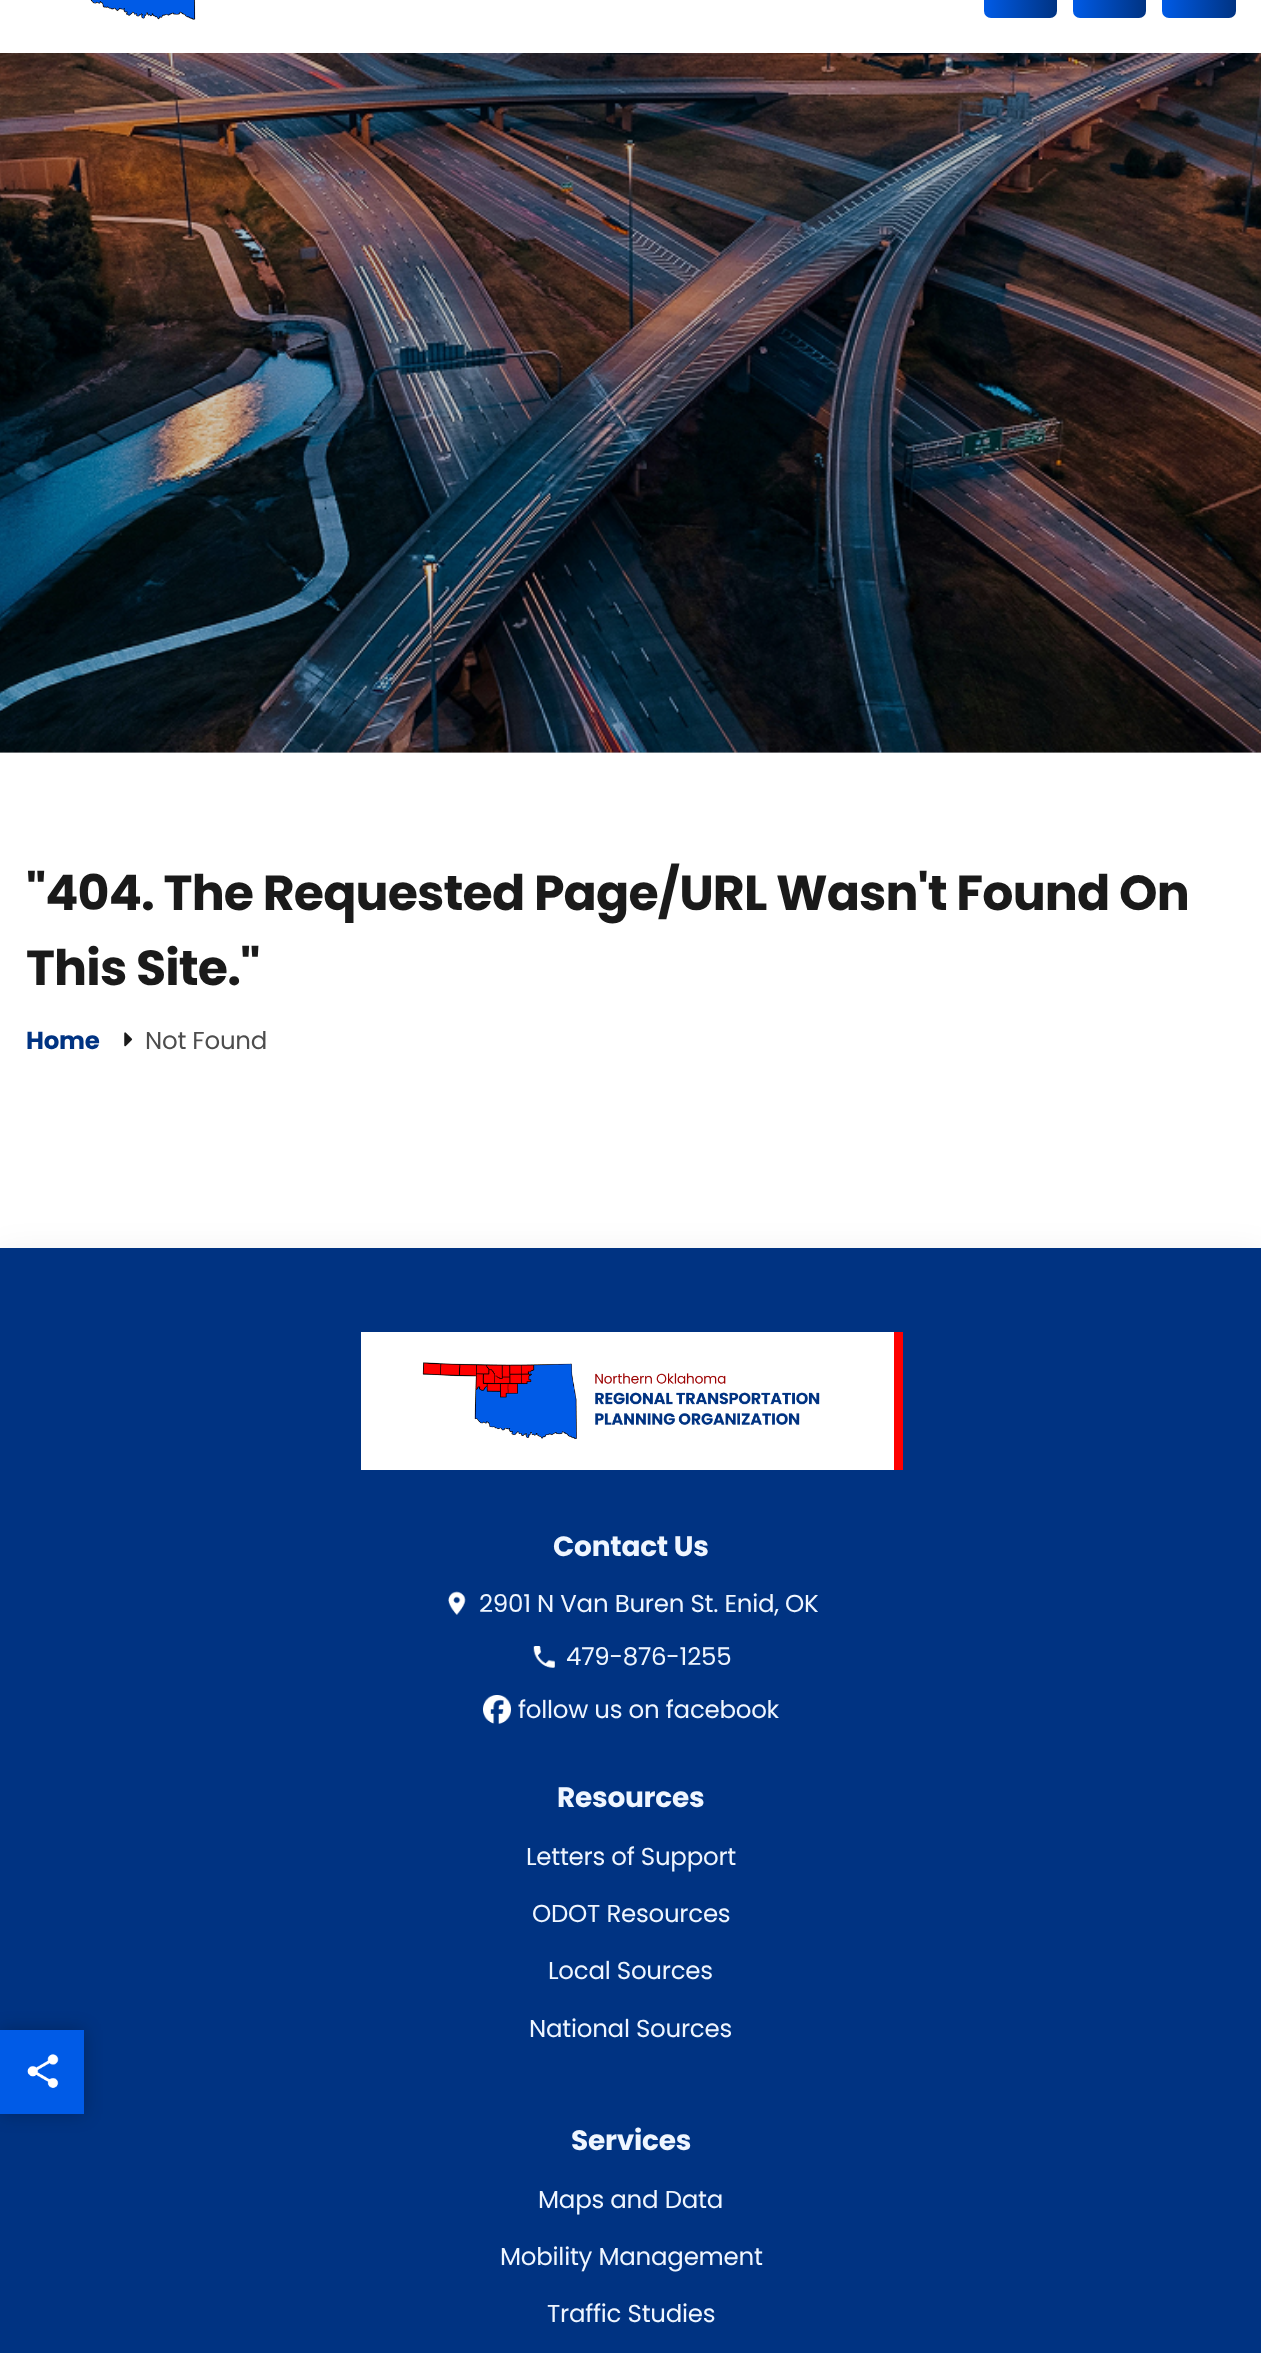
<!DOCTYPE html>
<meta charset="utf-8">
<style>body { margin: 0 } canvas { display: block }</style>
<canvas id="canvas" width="1261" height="2353"></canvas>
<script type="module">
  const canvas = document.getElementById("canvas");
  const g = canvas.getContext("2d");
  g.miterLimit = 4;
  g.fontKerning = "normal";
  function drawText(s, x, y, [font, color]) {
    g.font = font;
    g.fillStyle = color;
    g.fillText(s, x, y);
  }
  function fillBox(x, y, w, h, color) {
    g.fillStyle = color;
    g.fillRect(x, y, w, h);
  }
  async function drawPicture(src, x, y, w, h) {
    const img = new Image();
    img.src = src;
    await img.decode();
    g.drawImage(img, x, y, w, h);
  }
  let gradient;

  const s1 = ["bold 49px Poppins", "#1A1A1A"];
  const s2 = ["bold 24.5px Poppins", "#003382"];
  const s3 = ["24.5px Poppins", "#4D4D4D"];
  const s4 = ["bold 28px Poppins", "#EFF6FF"];
  const s5 = ["24.5px Poppins", "#EFF6FF"];

  fillBox(0, 0, 1261, 2353, "#FFFFFF");
  fillBox(0, 752, 1261, 1, "#CCCCCC");
  await drawPicture("pic2.png", 0, 53, 1261, 700);
  g.fillStyle = "rgba(0, 0, 0, 0.08)";
  g.filter = "blur(17.5px)";
  g.beginPath();
  g.rect(0, -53, 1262, 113);
  g.fill();
  g.filter = "none";
  fillBox(0, 0, 1261, 53, "#FFFFFF");
  await drawPicture("pic1.png", 90, 0, 106, 20);
  gradient = g.createLinearGradient(1057, -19, 984, -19);
  gradient.addColorStop(0, "#003382");
  gradient.addColorStop(1, "#005BE7");
  g.fillStyle = gradient;
  g.beginPath();
  g.roundRect(984, -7, 73, 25, 7);
  g.fill();
  gradient = g.createLinearGradient(1146, -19, 1073, -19);
  gradient.addColorStop(0, "#003382");
  gradient.addColorStop(1, "#005BE7");
  g.fillStyle = gradient;
  g.beginPath();
  g.roundRect(1073, -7, 73, 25, 7);
  g.fill();
  gradient = g.createLinearGradient(1236, -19, 1162, -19);
  gradient.addColorStop(0, "#003382");
  gradient.addColorStop(1, "#005BE7");
  g.fillStyle = gradient;
  g.beginPath();
  g.roundRect(1162, -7, 74, 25, 7);
  g.fill();
  g.letterSpacing = "-0.85px";
  drawText("\"404. The Requested Page/URL Wasn't Found On", 26, 910, s1);
  drawText("This Site.\"", 26, 985, s1);
  g.letterSpacing = "-0.25px";
  drawText("Home", 26, 1049, s2);
  await drawPicture("pic3.png", 124, 1032, 9, 15);
  drawText("Not Found", 145, 1049, s3);
  g.fillStyle = "rgba(0, 0, 0, 0.08)";
  g.filter = "blur(17.5px)";
  g.beginPath();
  g.rect(0, 1255, 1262, 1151);
  g.fill();
  g.filter = "none";
  fillBox(0, 1248, 1261, 1105, "#003382");
  g.fillStyle = "rgba(0, 0, 0, 0.25)";
  g.filter = "blur(9px)";
  g.beginPath();
  g.rect(0, 2030, 84, 84);
  g.fill();
  g.filter = "none";
  fillBox(0, 2030, 84, 84, "#005BE7");
  await drawPicture("pic4.png", 27, 2054, 32, 34);
  fillBox(361, 1332, 533, 138, "#FFFFFF");
  fillBox(894, 1332, 9, 138, "#FE0000");
  await drawPicture("pic5.png", 422, 1362, 398, 77);
  drawText("Contact Us", 553, 1556, s4);
  await drawPicture("pic6.png", 448, 1591, 18, 24);
  drawText("2901 N Van Buren St. Enid, OK", 479, 1612, s5);
  await drawPicture("pic7.png", 533, 1646, 22, 22);
  drawText("479-876-1255", 566, 1665, s5);
  await drawPicture("pic8.png", 483, 1695, 28, 29);
  drawText("follow us on facebook", 518, 1718, s5);
  drawText("Resources", 557, 1807, s4);
  drawText("Letters of Support", 526, 1865, s5);
  drawText("ODOT Resources", 532, 1922, s5);
  drawText("Local Sources", 548, 1979, s5);
  drawText("National Sources", 529, 2037, s5);
  drawText("Services", 571, 2150, s4);
  drawText("Maps and Data", 538, 2208, s5);
  drawText("Mobility Management", 500, 2265, s5);
  drawText("Traffic Studies", 547, 2322, s5);
</script>
